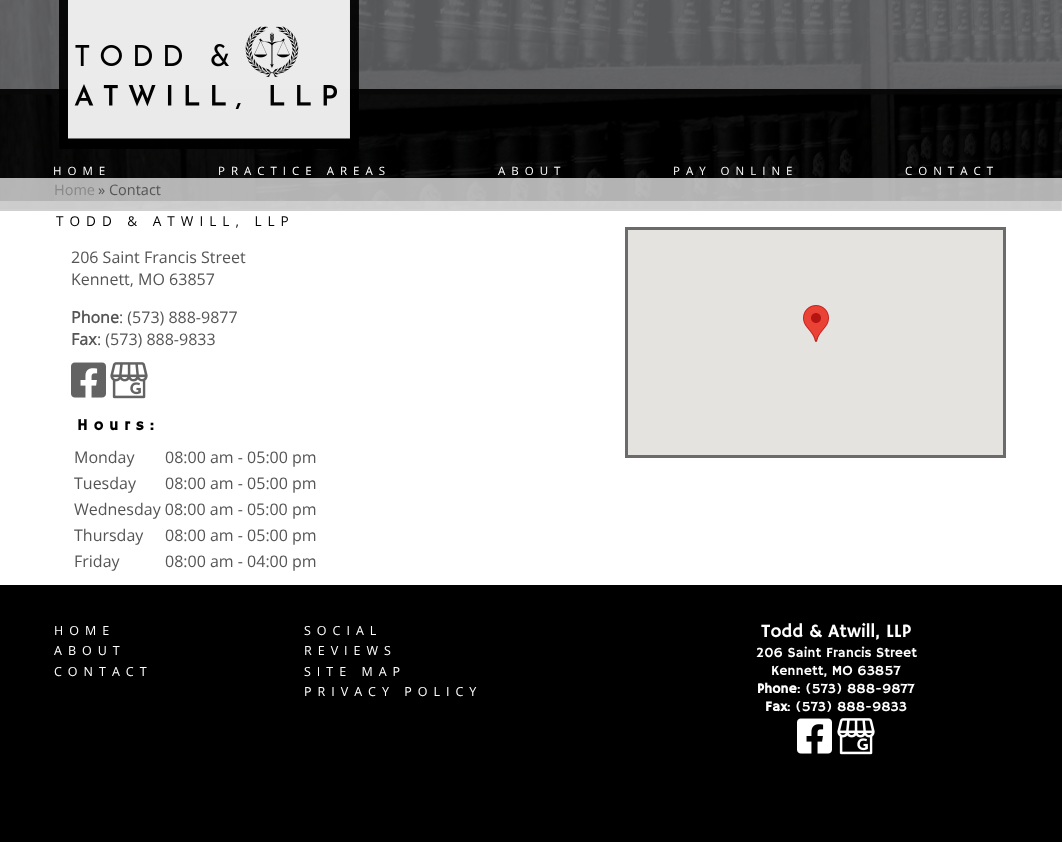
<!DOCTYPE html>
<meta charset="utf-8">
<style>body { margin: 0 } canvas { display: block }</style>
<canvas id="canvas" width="1062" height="842"></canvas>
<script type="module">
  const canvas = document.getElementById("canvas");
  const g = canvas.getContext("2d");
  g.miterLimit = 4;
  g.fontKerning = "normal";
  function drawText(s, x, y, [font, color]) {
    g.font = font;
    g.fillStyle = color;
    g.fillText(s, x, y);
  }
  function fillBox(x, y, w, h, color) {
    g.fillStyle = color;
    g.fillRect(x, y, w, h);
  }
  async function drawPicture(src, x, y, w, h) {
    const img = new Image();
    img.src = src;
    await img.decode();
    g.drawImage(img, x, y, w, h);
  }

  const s1 = ["11.5px Open Sans", "#FFFFFF"];
  const s2 = ["14.5px Open Sans", "#888888"];
  const s3 = ["14.5px Open Sans", "#555555"];
  const s4 = ["13.6px Open Sans", "#000000"];
  const s5 = ["16px Open Sans", "#555555"];
  const s6 = ["bold 16px Open Sans", "#555555"];
  const s7 = ["bold 16px Hammersmith One", "#000000"];
  const s8 = ["12.5px Open Sans", "#FFFFFF"];
  const s9 = ["18.75px Hammersmith One", "#FFFFFF"];
  const s10 = ["14px Hammersmith One", "#FFFFFF"];
  const s11 = ["bold 14px Hammersmith One", "#FFFFFF"];

  fillBox(0, 0, 1062, 842, "#FFFFFF");
  await drawPicture("pic1.png", 0, 0, 1062, 201);
  await drawPicture("pic2.png", 59, 0, 300, 149);
  g.letterSpacing = "6px";
  drawText("HOME", 53, 175, s1);
  drawText("PRACTICE AREAS", 218, 175, s1);
  drawText("ABOUT", 498, 175, s1);
  drawText("PAY ONLINE", 673, 175, s1);
  drawText("CONTACT", 905, 175, s1);
  fillBox(0, 178, 1062, 23, "rgba(255, 255, 255, 0.7)");
  g.letterSpacing = "0px";
  drawText("Home", 54, 195, s2);
  drawText("» Contact", 98, 195, s3);
  g.letterSpacing = "6px";
  drawText("TODD & ATWILL, LLP", 56, 226, s4);
  g.letterSpacing = "0px";
  drawText("206 Saint Francis Street", 71, 263, s5);
  drawText("Kennett, MO 63857", 71, 285, s5);
  drawText("Phone", 71, 323, s6);
  drawText(": (573) 888-9877", 119, 323, s5);
  drawText("Fax", 71, 345, s6);
  drawText(": (573) 888-9833", 97, 345, s5);
  g.strokeStyle = "#6B6B6B";
  g.lineWidth = 3;
  g.strokeRect(626.5, 228.5, 378, 228);
  fillBox(628, 230, 375, 225, "#E5E3DF");
  await drawPicture("pic3.png", 803, 305, 26, 37);
  await drawPicture("pic4.png", 71, 362, 35, 36);
  await drawPicture("pic5.png", 110, 362, 38, 37);
  g.letterSpacing = "6px";
  drawText("Hours:", 77, 430, s7);
  g.letterSpacing = "0px";
  drawText("Monday", 74, 463, s5);
  drawText("08:00 am - 05:00 pm", 165, 463, s5);
  drawText("Tuesday", 74, 489, s5);
  drawText("08:00 am - 05:00 pm", 165, 489, s5);
  drawText("Wednesday 08:00 am - 05:00 pm", 74, 515, s5);
  drawText("Thursday", 74, 541, s5);
  drawText("08:00 am - 05:00 pm", 165, 541, s5);
  drawText("Friday", 74, 567, s5);
  drawText("08:00 am - 04:00 pm", 165, 567, s5);
  fillBox(0, 585, 1062, 257, "#000000");
  g.letterSpacing = "6px";
  drawText("HOME", 54, 635, s8);
  drawText("ABOUT", 54, 655, s8);
  drawText("CONTACT", 54, 676, s8);
  drawText("SOCIAL", 304, 635, s8);
  drawText("REVIEWS", 304, 655, s8);
  drawText("SITE MAP", 304, 676, s8);
  drawText("PRIVACY POLICY", 304, 696, s8);
  g.letterSpacing = "0px";
  drawText("Todd & Atwill, LLP", 761, 637, s9);
  drawText("206 Saint Francis Street", 756, 657, s10);
  drawText("Kennett, MO 63857", 771, 675, s10);
  drawText("Phone", 757, 693, s11);
  drawText(": (573) 888-9877", 797, 693, s10);
  drawText("Fax", 765, 711, s11);
  drawText(": (573) 888-9833", 787, 711, s10);
  await drawPicture("pic6.png", 797, 718, 35, 36);
  await drawPicture("pic7.png", 837, 718, 38, 37);
  await drawPicture("pic8.png", 0, 201, 1062, 10);
</script>
